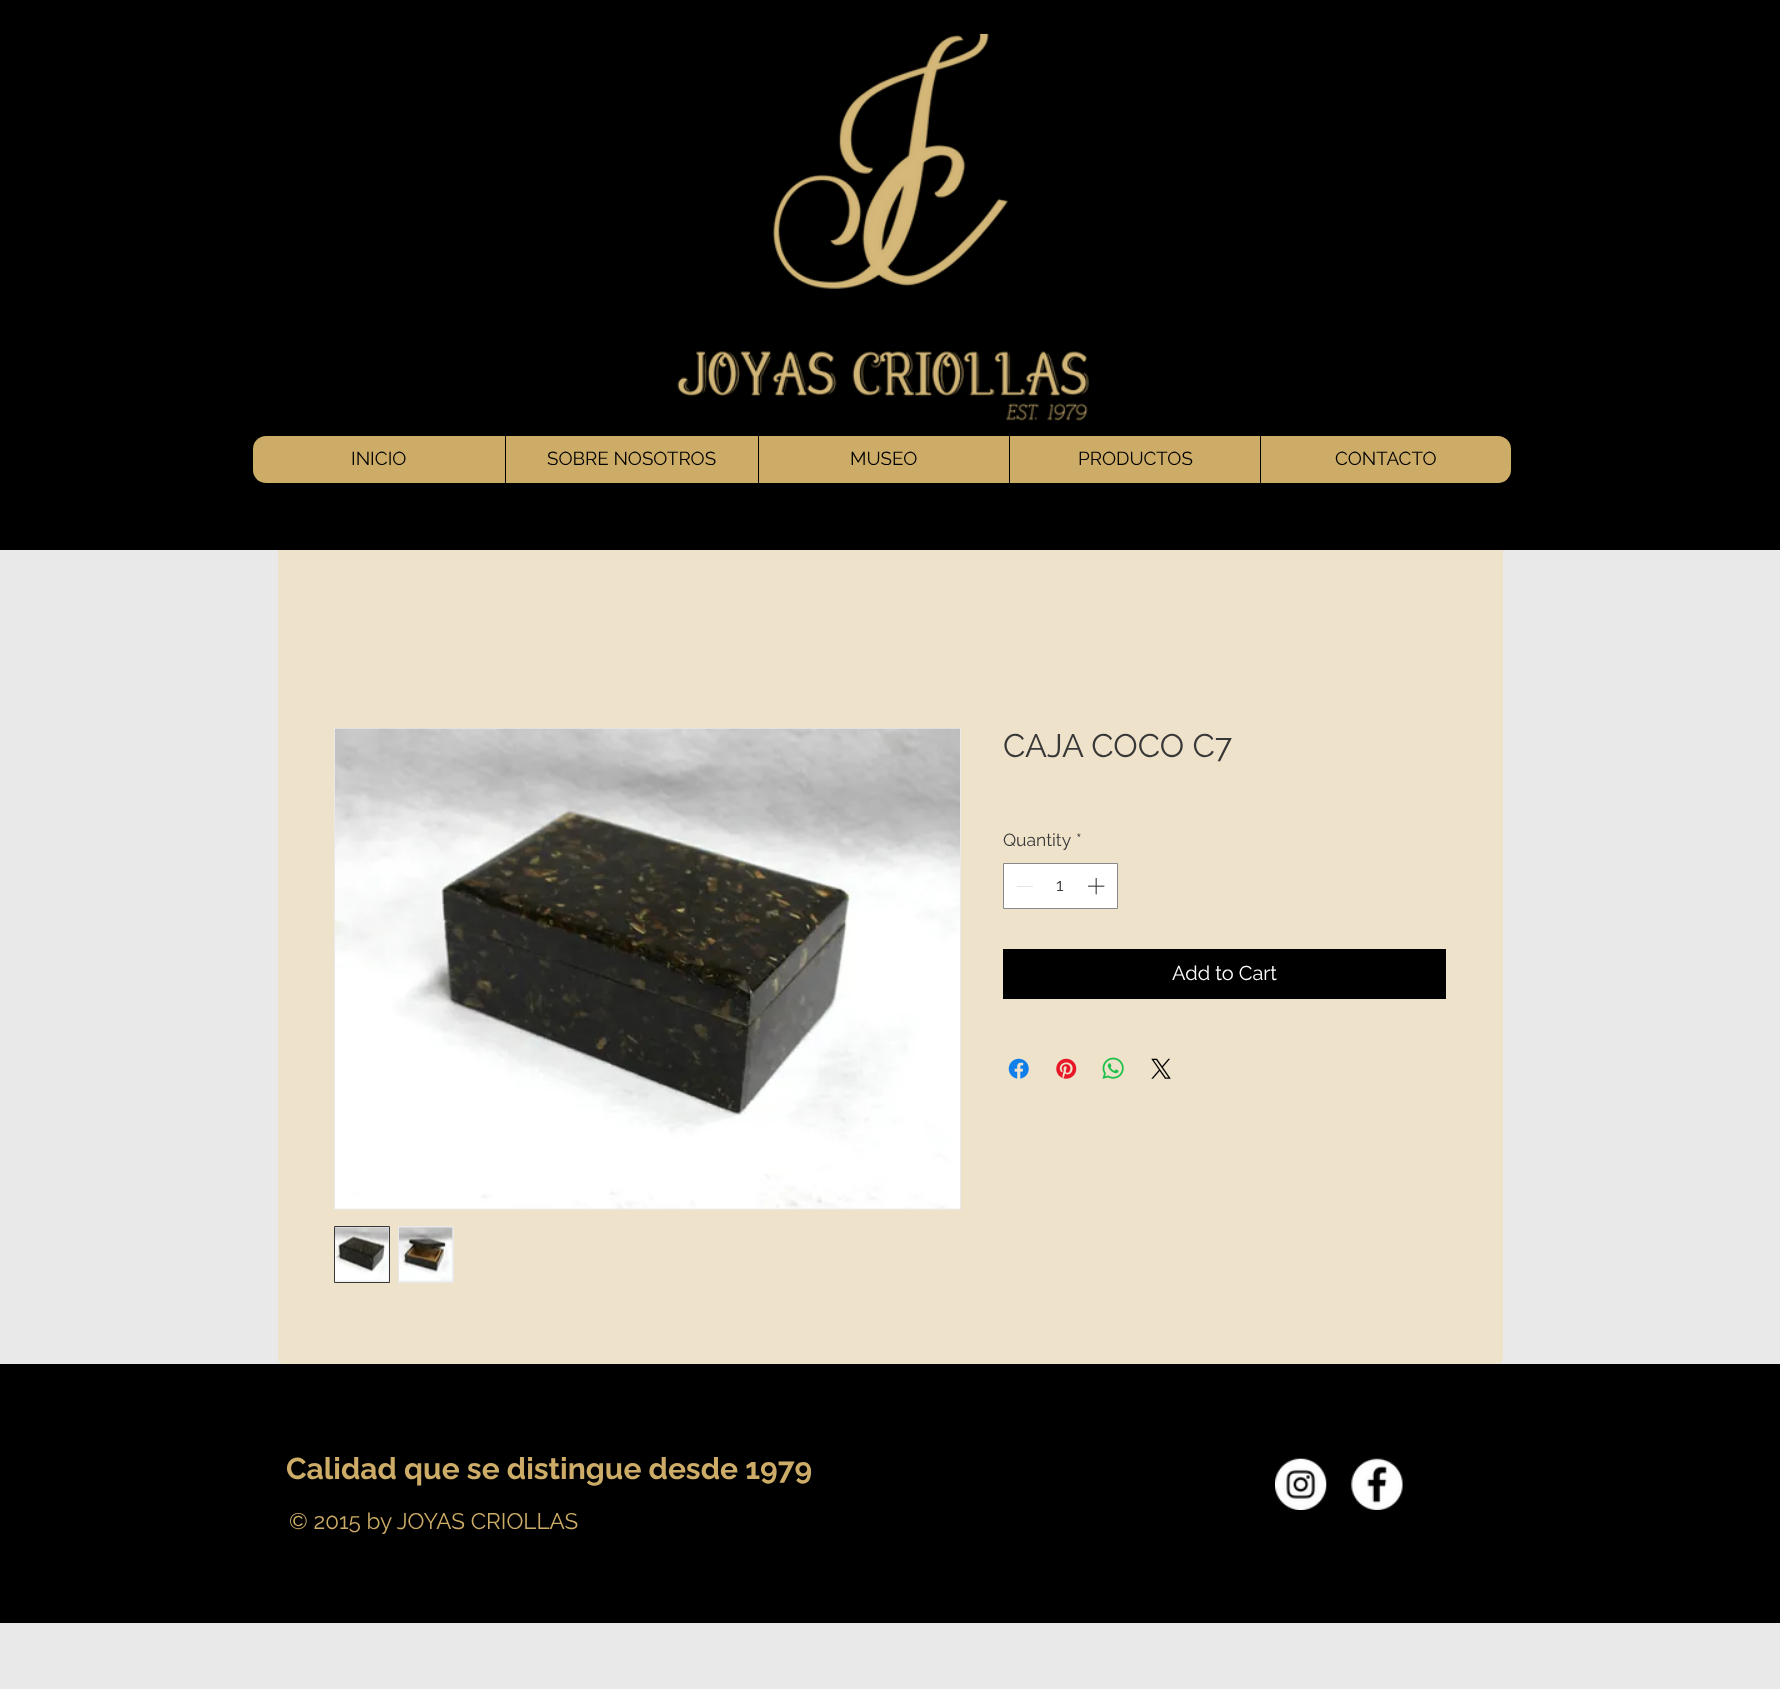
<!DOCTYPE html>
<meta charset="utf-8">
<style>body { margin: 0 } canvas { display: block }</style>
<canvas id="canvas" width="1780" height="1689"></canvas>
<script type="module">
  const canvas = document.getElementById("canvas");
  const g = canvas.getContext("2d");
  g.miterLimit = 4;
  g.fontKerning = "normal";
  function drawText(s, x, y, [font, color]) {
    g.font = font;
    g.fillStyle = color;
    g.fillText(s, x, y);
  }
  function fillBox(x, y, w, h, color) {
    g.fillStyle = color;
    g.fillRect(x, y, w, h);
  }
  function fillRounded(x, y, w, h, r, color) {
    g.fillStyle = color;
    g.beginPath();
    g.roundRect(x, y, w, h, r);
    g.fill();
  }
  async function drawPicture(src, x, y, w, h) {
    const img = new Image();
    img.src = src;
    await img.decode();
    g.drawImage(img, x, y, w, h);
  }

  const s1 = ["18.75px Raleway", "#000000"];
  const s2 = ["32.5px Raleway", "#383838"];
  const s3 = ["17.5px Raleway", "#383838"];
  const s4 = ["20px Raleway", "#FFFFFF"];
  const s5 = ["bold 30px Raleway", "#CCAC67"];
  const s6 = ["22.5px Raleway", "#CCAC67"];

  fillBox(0, 0, 1780, 1689, "#E9E9E9");
  fillBox(0, 0, 1780, 550, "#000000");
  await drawPicture("pic1.png", 677, 33, 412, 388);
  fillRounded(253, 436, 1258, 47, 13, "#CCAC67");
  drawText("INICIO", 351, 465, s1);
  fillBox(505, 436, 1, 47, "#000000");
  drawText("SOBRE NOSOTROS", 547, 465, s1);
  fillBox(758, 436, 1, 47, "#000000");
  drawText("MUSEO", 850, 465, s1);
  fillBox(1009, 436, 1, 47, "#000000");
  drawText("PRODUCTOS", 1078, 465, s1);
  fillBox(1260, 436, 1, 47, "#000000");
  drawText("CONTACTO", 1335, 465, s1);
  g.fillStyle = "#EEE2CB";
  g.beginPath();
  g.roundRect(278, 550, 1225, 814, [0, 0, 6, 6]);
  g.fill();
  g.strokeStyle = "#E9E9E9";
  g.strokeRect(334.5, 728.5, 626, 481);
  await drawPicture("pic2.png", 335, 728, 625, 481);
  g.fillStyle = "#E9E9E9";
  g.beginPath();
  g.rect(334.5, 1226.5, 55, 56);
  g.fill();
  g.strokeStyle = "#383838";
  g.stroke();
  await drawPicture("pic3.png", 335, 1227, 54, 55);
  fillBox(398, 1226, 56, 57, "#E9E9E9");
  await drawPicture("pic4.png", 399, 1227, 54, 55);
  drawText("CAJA COCO C7", 1003, 757, s2);
  drawText("Quantity", 1003, 846, s3);
  drawText("*", 1076, 846, s3);
  g.fillStyle = "#FFFFFF";
  g.beginPath();
  g.rect(1003.5, 863.5, 114, 45);
  g.fill();
  g.strokeStyle = "#888888";
  g.stroke();
  fillBox(1017, 886, 16, 1, "#E3E3E3");
  drawText("1", 1056, 891, s3);
  await drawPicture("pic5.png", 1088, 878, 17, 17);
  fillBox(1003, 949, 443, 50, "#000000");
  drawText("Add to Cart", 1172, 980, s4);
  await drawPicture("pic6.png", 1008, 1058, 21, 21);
  await drawPicture("pic7.png", 1056, 1058, 21, 21);
  await drawPicture("pic8.png", 1102, 1057, 22, 22);
  await drawPicture("pic9.png", 1151, 1058, 20, 21);
  fillBox(0, 1364, 1780, 259, "#000000");
  drawText("Calidad que se distingue desde 1979", 286, 1479, s5);
  await drawPicture("pic10.png", 1275, 1458, 52, 52);
  await drawPicture("pic11.png", 1351, 1458, 52, 52);
  drawText("© 2015 by JOYAS CRIOLLAS", 289, 1529, s6);
</script>
